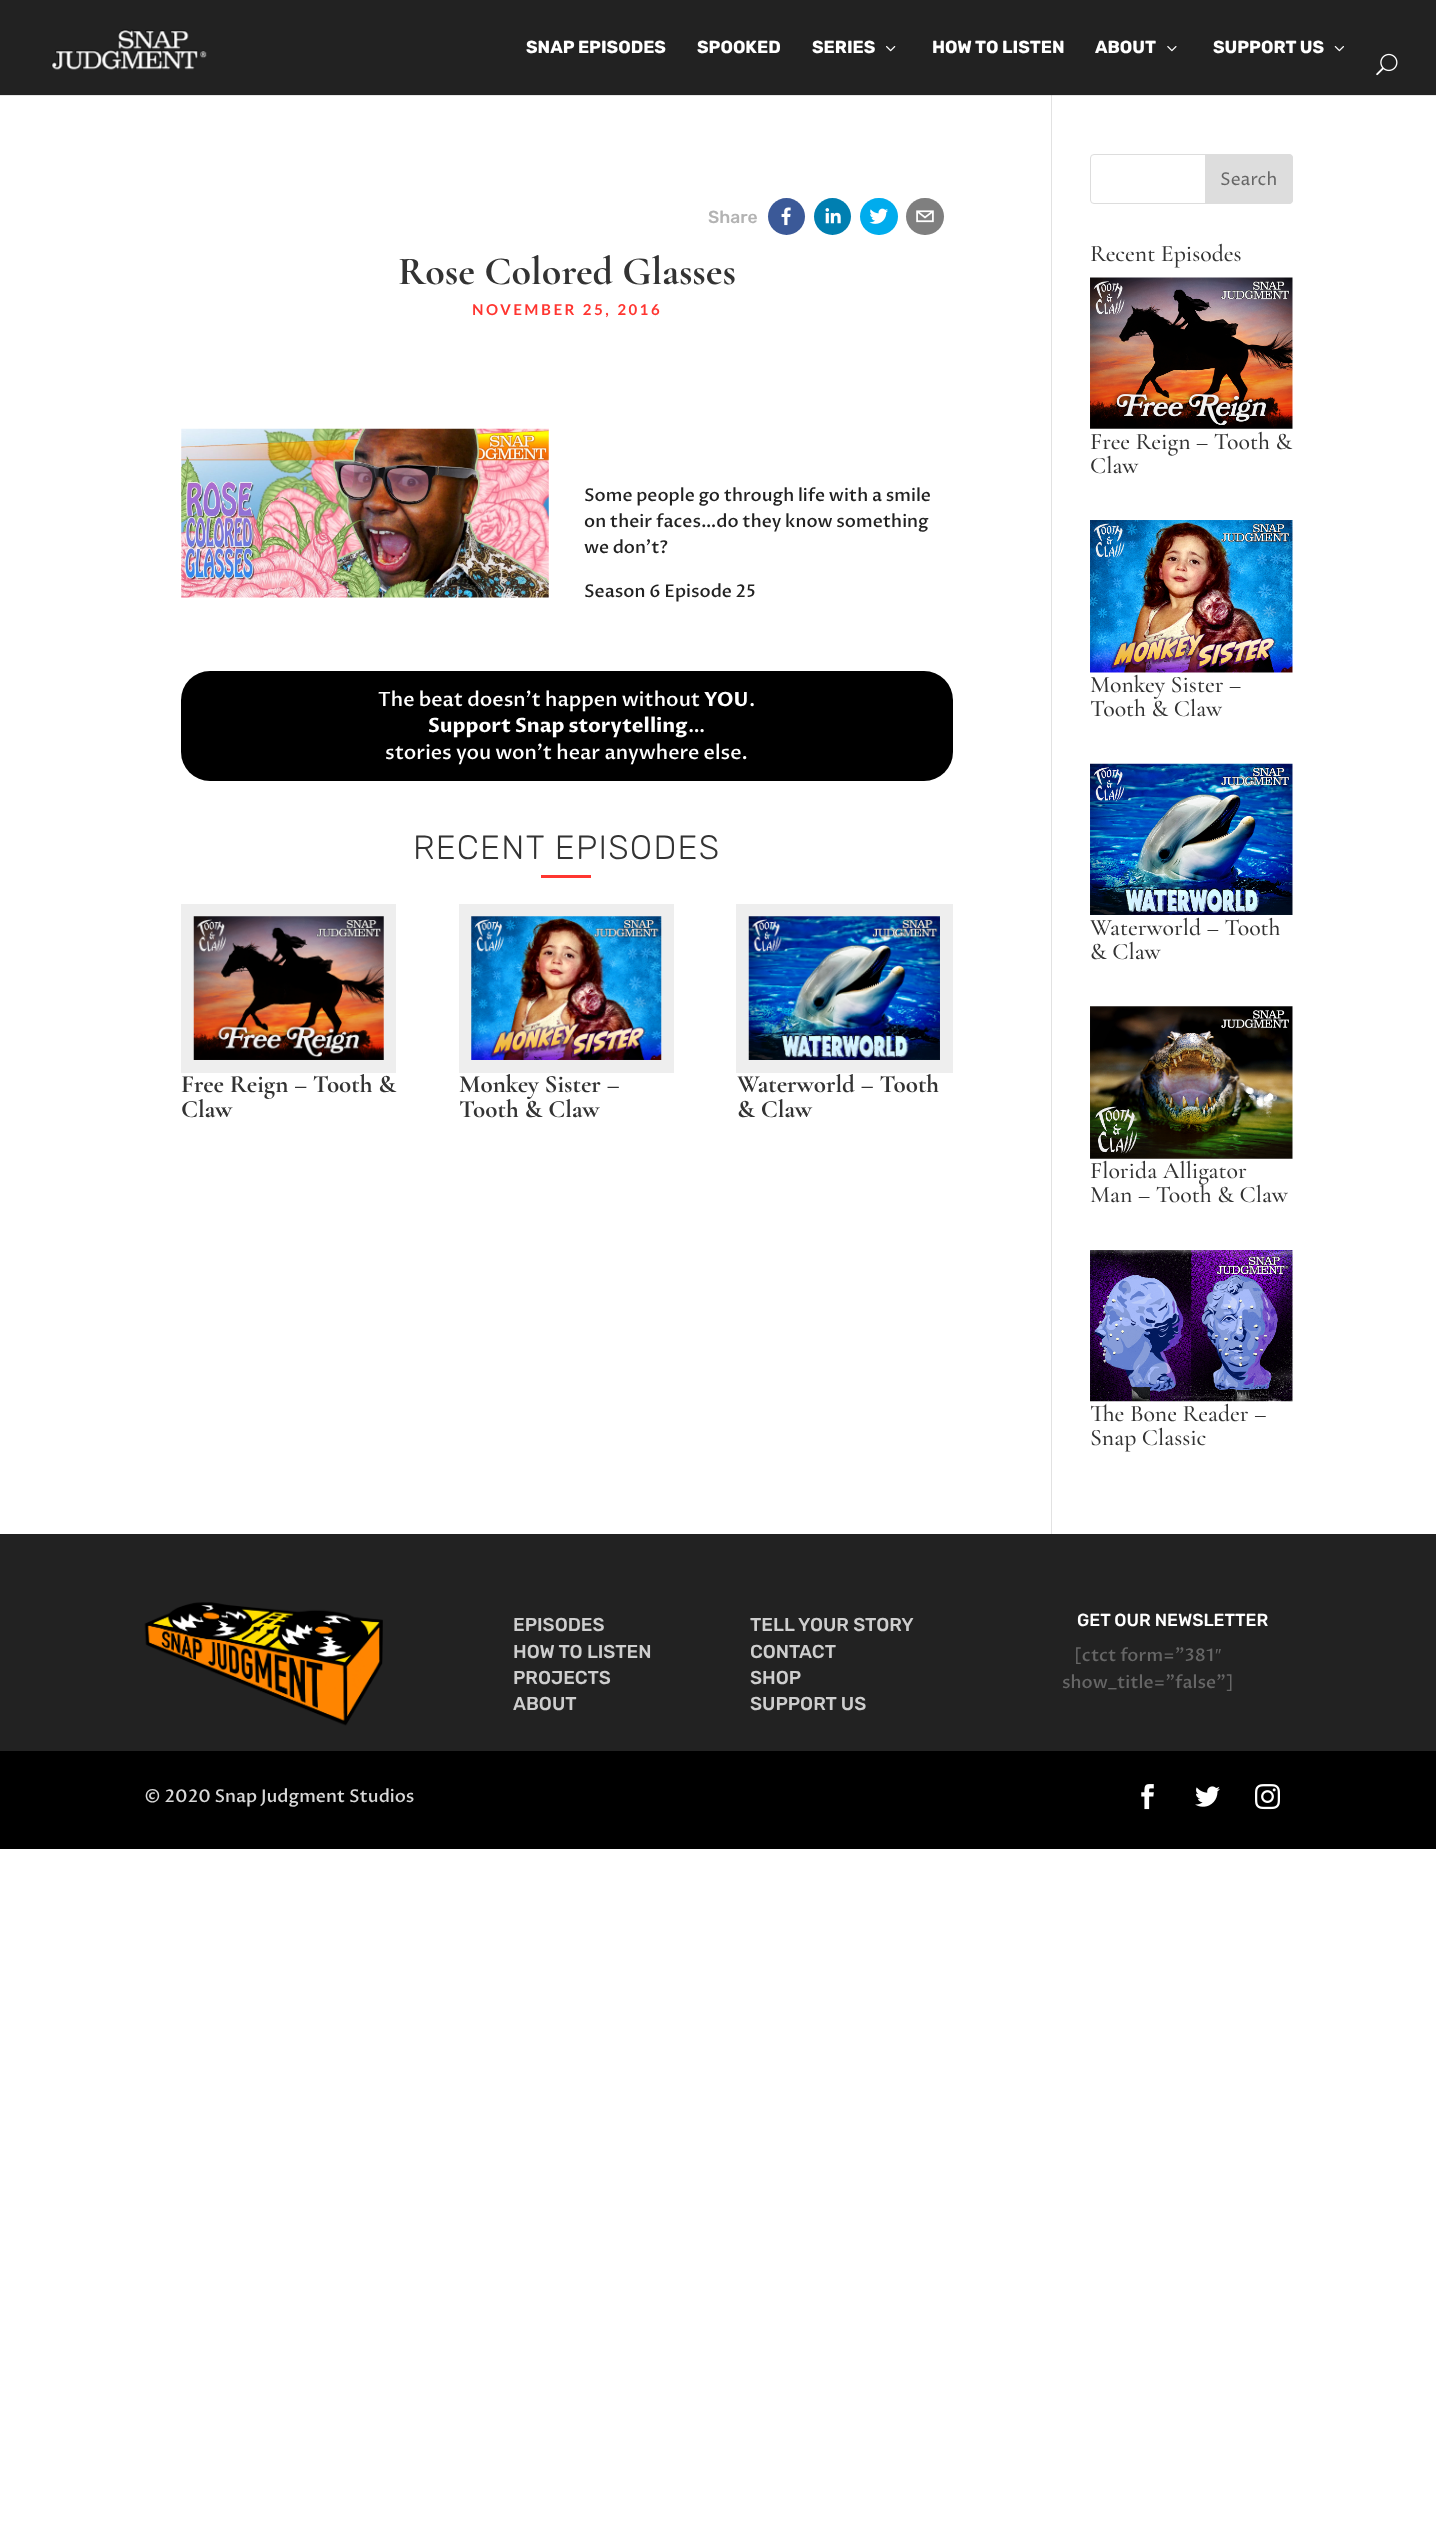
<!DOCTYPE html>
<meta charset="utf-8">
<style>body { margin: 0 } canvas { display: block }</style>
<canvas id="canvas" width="1436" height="2542"></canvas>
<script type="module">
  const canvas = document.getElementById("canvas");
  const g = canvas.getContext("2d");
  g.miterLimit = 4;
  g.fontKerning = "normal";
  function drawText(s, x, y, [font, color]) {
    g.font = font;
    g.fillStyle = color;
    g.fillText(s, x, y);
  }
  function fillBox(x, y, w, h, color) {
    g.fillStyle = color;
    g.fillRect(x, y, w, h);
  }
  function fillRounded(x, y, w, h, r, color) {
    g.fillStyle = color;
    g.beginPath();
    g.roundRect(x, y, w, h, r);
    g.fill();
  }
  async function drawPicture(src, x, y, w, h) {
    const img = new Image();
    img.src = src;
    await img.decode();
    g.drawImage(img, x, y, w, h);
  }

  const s1 = ["bold 17.5px Rubik", "#FFFFFF"];
  const s2 = ["500 17.5px Rubik", "#B3B3B3"];
  const s3 = ["300 40px Cormorant Garamond", "#333333"];
  const s4 = ["bold 15px Lato", "#FF3530"];
  const s5 = ["500 17.5px Proza Libre", "#222222"];
  const s6 = ["500 19.7px Proza Libre", "#FFFFFF"];
  const s7 = ["bold 19.7px Proza Libre", "#FFFFFF"];
  const s8 = ["300 33.75px Rubik", "#333333"];
  const s9 = ["300 25px Cormorant Garamond", "#333333"];
  const s10 = ["17.5px Proza Libre", "#666666"];
  const s11 = ["500 23.75px Cormorant Garamond", "#333333"];
  const s12 = ["500 18.75px Rubik", "#CECECE"];
  const s13 = ["500 17.5px Rubik", "#FFFFFF"];
  const s14 = ["500 17.5px Proza Libre", "#666666"];
  const s15 = ["17.5px Liberation Sans", "#666666"];
  const s16 = ["500 17.5px Proza Libre", "#D8D8D8"];

  fillBox(0, 0, 1436, 2542, "#FFFFFF");
  fillBox(0, 95, 1436, 1, "#E6E6E6");
  fillBox(0, 0, 1436, 95, "#222222");
  await drawPicture("pic1.png", 51, 29, 156, 41);
  drawText("SNAP EPISODES", 526, 53, s1);
  drawText("SPOOKED", 697, 53, s1);
  drawText("SERIES", 812, 53, s1);
  await drawPicture("pic2.png", 886, 46, 10, 6);
  drawText("HOW TO LISTEN", 932, 53, s1);
  drawText("ABOUT", 1095, 53, s1);
  await drawPicture("pic3.png", 1167, 46, 10, 6);
  drawText("SUPPORT US", 1213, 53, s1);
  await drawPicture("pic4.png", 1334, 46, 10, 6);
  await drawPicture("pic5.png", 1376, 53, 22, 23);
  fillBox(1051, 96, 1, 1438, "#E2E2E2");
  fillBox(1051, 95, 1, 1, "#CBCBCB");
  drawText("Share", 708, 223, s2);
  g.fillStyle = "#3B5998";
  g.beginPath();
  g.arc(786.5, 216.5, 18.5, 0, Math.PI * 2);
  g.fill();
  await drawPicture("pic6.png", 781, 207, 10, 19);
  g.fillStyle = "#007FB1";
  g.beginPath();
  g.arc(832.5, 216.5, 18.5, 0, Math.PI * 2);
  g.fill();
  await drawPicture("pic7.png", 825, 208, 16, 16);
  fillRounded(860, 198, 38, 37, 18.5, "#00ACED");
  await drawPicture("pic8.png", 869, 208, 19, 16);
  fillRounded(906, 198, 38, 37, 18.5, "#7F7F7F");
  await drawPicture("pic9.png", 916, 210, 18, 13);
  drawText("Rose Colored Glasses", 398, 284, s3);
  g.letterSpacing = "2.5px";
  drawText("NOVEMBER 25, 2016", 472, 315, s4);
  await drawPicture("pic10.png", 181, 428, 368, 170);
  g.letterSpacing = "0px";
  drawText("Some people go through life with a smile", 584, 501, s5);
  drawText("on their faces…do they know something", 584, 527, s5);
  drawText("we don’t?", 584, 553, s5);
  drawText("Season 6 Episode 25", 584, 597, s5);
  fillRounded(181, 671, 772, 110, 29, "#000000");
  drawText("The beat doesn’t happen without", 378, 706, s6);
  drawText("YOU", 704, 706, s7);
  drawText(".", 749, 706, s6);
  drawText("Support Snap storytelling", 428, 732, s7);
  drawText("…", 688, 732, s6);
  drawText("stories you won’t hear anywhere else.", 385, 759, s6);
  g.letterSpacing = "1.25px";
  drawText("RECENT EPISODES", 413, 859, s8);
  fillBox(541, 875, 50, 3, "#FF3630");
  fillBox(181, 904, 215, 169, "#EEEEEE");
  await drawPicture("pic11.png", 193, 916, 191, 144);
  g.letterSpacing = "0px";
  drawText("Free Reign – Tooth &", 181, 1092, s9);
  drawText("Claw", 181, 1117, s9);
  fillBox(459, 904, 215, 169, "#EEEEEE");
  await drawPicture("pic12.png", 471, 916, 191, 144);
  drawText("Monkey Sister –", 459, 1092, s9);
  drawText("Tooth & Claw", 459, 1117, s9);
  fillBox(736, 904, 217, 169, "#EEEEEE");
  await drawPicture("pic13.png", 748, 916, 192, 144);
  drawText("Waterworld – Tooth", 737, 1092, s9);
  drawText("& Claw", 737, 1117, s9);
  g.beginPath();
  g.roundRect(1090.5, 154.5, 202, 49, 3.5);
  g.strokeStyle = "#DDDDDD";
  g.stroke();
  g.fillStyle = "#DDDDDD";
  g.beginPath();
  g.roundRect(1205.5, 154.5, 87, 49, [0, 3.5, 3.5, 0]);
  g.fill();
  g.stroke();
  drawText("Search", 1220, 185, s10);
  drawText("Recent Episodes", 1090, 261, s11);
  await drawPicture("pic14.png", 1090, 277, 203, 152);
  drawText("Free Reign – Tooth &", 1090, 449, s11);
  drawText("Claw", 1090, 473, s11);
  await drawPicture("pic15.png", 1090, 520, 203, 153);
  drawText("Monkey Sister –", 1090, 692, s11);
  drawText("Tooth & Claw", 1090, 716, s11);
  await drawPicture("pic16.png", 1090, 763, 203, 152);
  drawText("Waterworld – Tooth", 1090, 935, s11);
  drawText("& Claw", 1090, 959, s11);
  await drawPicture("pic17.png", 1090, 1006, 203, 153);
  drawText("Florida Alligator", 1090, 1178, s11);
  drawText("Man – Tooth & Claw", 1090, 1202, s11);
  await drawPicture("pic18.png", 1090, 1250, 203, 152);
  drawText("The Bone Reader –", 1090, 1421, s11);
  drawText("Snap Classic", 1090, 1445, s11);
  fillBox(0, 1534, 1436, 217, "#222222");
  await drawPicture("pic19.png", 144, 1602, 239, 124);
  drawText("EPISODES", 513, 1631, s12);
  drawText("HOW TO LISTEN", 513, 1658, s12);
  drawText("PROJECTS", 513, 1684, s12);
  drawText("ABOUT", 513, 1710, s12);
  drawText("TELL YOUR STORY", 750, 1631, s12);
  drawText("CONTACT", 750, 1658, s12);
  drawText("SHOP", 750, 1684, s12);
  drawText("SUPPORT US", 750, 1710, s12);
  drawText("GET OUR NEWSLETTER", 1077, 1626, s13);
  drawText("[ctct form=”381", 1074, 1661, s14);
  drawText("″", 1215, 1661, s15);
  drawText("show_title=”false”]", 1062, 1688, s14);
  fillBox(0, 1751, 1436, 98, "#000000");
  drawText("© 2020 Snap Judgment Studios", 144, 1802, s16);
  await drawPicture("pic20.png", 1141, 1784, 13, 26);
  await drawPicture("pic21.png", 1195, 1786, 25, 21);
  await drawPicture("pic22.png", 1255, 1784, 25, 26);
</script>
